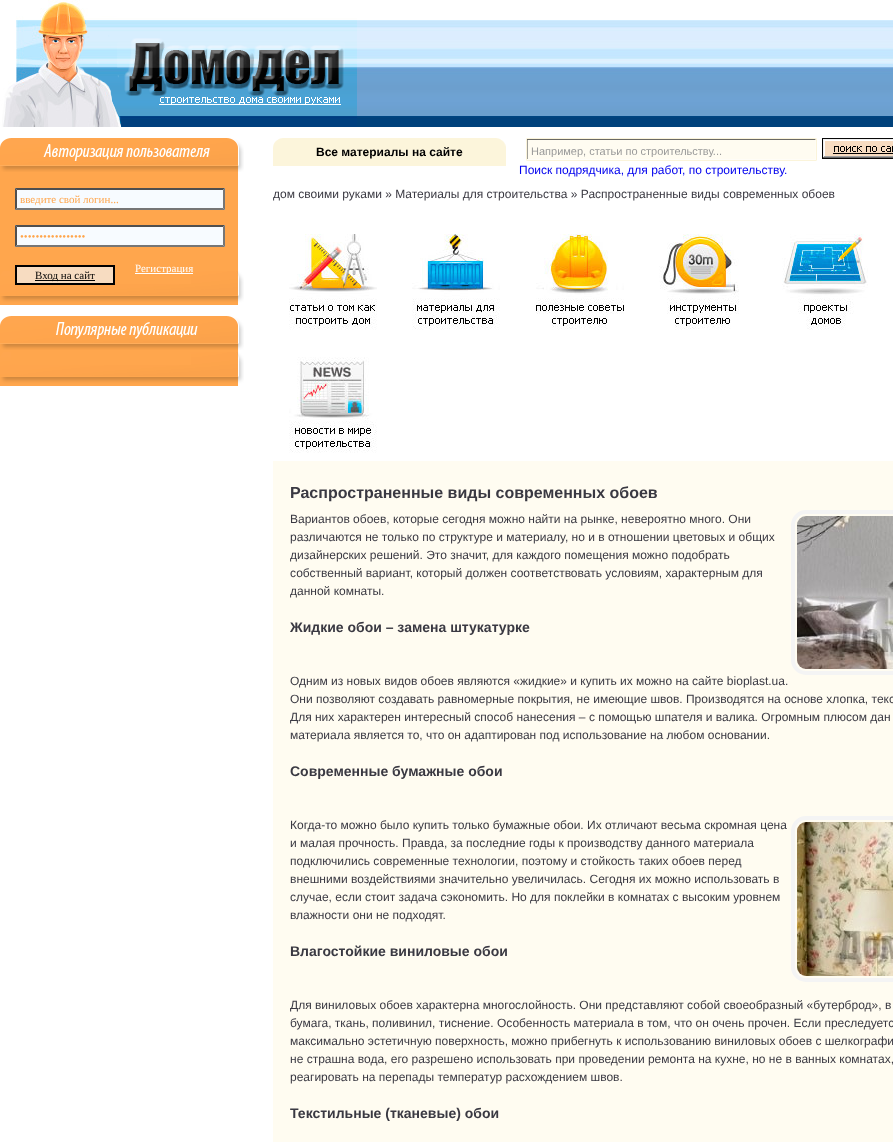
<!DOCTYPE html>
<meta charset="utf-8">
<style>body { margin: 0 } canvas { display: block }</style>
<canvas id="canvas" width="893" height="1142"></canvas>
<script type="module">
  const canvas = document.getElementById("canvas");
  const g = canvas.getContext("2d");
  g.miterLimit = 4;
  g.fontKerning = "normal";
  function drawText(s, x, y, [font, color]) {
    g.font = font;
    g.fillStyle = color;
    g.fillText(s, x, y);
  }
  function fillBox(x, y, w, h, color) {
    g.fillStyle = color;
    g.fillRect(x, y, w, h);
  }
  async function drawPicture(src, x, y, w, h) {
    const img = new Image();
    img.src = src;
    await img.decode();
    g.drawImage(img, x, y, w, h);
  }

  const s1 = ["11px Liberation Serif", "#FFA64D"];
  const s2 = ["11px Liberation Serif", "#000000"];
  const s3 = ["11px Liberation Serif", "#FFFFFF"];
  const s4 = ["bold 12px Liberation Sans", "#000000"];
  const s5 = ["11px Liberation Sans", "#999999"];
  const s6 = ["12px Liberation Sans", "#0000EE"];
  const s7 = ["12px Liberation Sans", "#3A3942"];
  const s8 = ["bold 16px Liberation Sans", "#3A3942"];
  const s9 = ["bold 14px Liberation Sans", "#3A3942"];

  fillBox(0, 0, 893, 1142, "#FFFFFF");
  await drawPicture("pic1.png", 357, 20, 536, 107);
  await drawPicture("pic2.png", 0, 0, 357, 127);
  await drawPicture("pic3.png", 0, 172, 244, 133);
  await drawPicture("pic4.png", 0, 138, 244, 34);
  await drawPicture("pic5.png", 43, 144, 167, 17);
  fillBox(15, 188, 210, 22, "#F7FBFF");
  g.fillStyle = "#4F4F4F";
  g.beginPath();
  g.moveTo(15, 188);
  g.lineTo(225, 188);
  g.lineTo(223, 190);
  g.lineTo(17, 190);
  g.closePath();
  g.fill();
  g.fillStyle = "#767676";
  g.beginPath();
  g.moveTo(225, 188);
  g.lineTo(225, 210);
  g.lineTo(223, 208);
  g.lineTo(223, 190);
  g.closePath();
  g.fill();
  g.beginPath();
  g.moveTo(225, 210);
  g.lineTo(15, 210);
  g.lineTo(17, 208);
  g.lineTo(223, 208);
  g.closePath();
  g.fill();
  g.fillStyle = "#4F4F4F";
  g.beginPath();
  g.moveTo(15, 210);
  g.lineTo(15, 188);
  g.lineTo(17, 190);
  g.lineTo(17, 208);
  g.closePath();
  g.fill();
  drawText("введите свой логин...", 20, 203, s1);
  fillBox(15, 225, 210, 22, "#F7FBFF");
  g.fillStyle = "#4F4F4F";
  g.beginPath();
  g.moveTo(15, 225);
  g.lineTo(225, 225);
  g.lineTo(223, 227);
  g.lineTo(17, 227);
  g.closePath();
  g.fill();
  g.fillStyle = "#767676";
  g.beginPath();
  g.moveTo(225, 225);
  g.lineTo(225, 247);
  g.lineTo(223, 245);
  g.lineTo(223, 227);
  g.closePath();
  g.fill();
  g.beginPath();
  g.moveTo(225, 247);
  g.lineTo(15, 247);
  g.lineTo(17, 245);
  g.lineTo(223, 245);
  g.closePath();
  g.fill();
  g.fillStyle = "#4F4F4F";
  g.beginPath();
  g.moveTo(15, 247);
  g.lineTo(15, 225);
  g.lineTo(17, 227);
  g.lineTo(17, 245);
  g.closePath();
  g.fill();
  drawText("•••••••••••••••••", 20, 240, s1);
  g.fillStyle = "#F7DCC1";
  g.beginPath();
  g.rect(16, 266, 98, 18);
  g.fill();
  g.strokeStyle = "#000000";
  g.lineWidth = 2;
  g.stroke();
  fillBox(35, 280, 60, 1, "#000000");
  drawText("Вход на сайт", 35, 279, s2);
  fillBox(135, 273, 58, 1, "#FFFFFF");
  g.save();
  g.beginPath();
  g.rect(135, 262, 100, 12);
  g.clip();
  drawText("Регистрация", 135, 272, s3);
  g.restore();
  await drawPicture("pic6.png", 0, 350, 244, 36);
  await drawPicture("pic4.png", 0, 316, 244, 34);
  await drawPicture("pic7.png", 56, 322, 142, 17);
  await drawPicture("pic8.png", 273, 138, 233, 28);
  drawText("Все материалы на сайте", 316, 156, s4);
  await drawPicture("pic9.png", 526, 138, 291, 23);
  g.save();
  g.beginPath();
  g.rect(531, 145, 281, 12);
  g.clip();
  drawText("Например, cтатьи по строительству...", 531, 155, s5);
  g.restore();
  await drawPicture("pic10.png", 822, 138, 71, 21);
  drawText("Поиск подрядчика, для работ, по строительству.", 519, 174, s6);
  drawText("дом своими руками » Материалы для строительства » Распространенные виды современных обоев", 273, 198, s7);
  await drawPicture("pic11.png", 289, 234, 88, 96);
  await drawPicture("pic12.png", 412, 234, 88, 96);
  await drawPicture("pic13.png", 536, 234, 88, 96);
  await drawPicture("pic14.png", 659, 234, 80, 96);
  await drawPicture("pic15.png", 782, 234, 86, 96);
  await drawPicture("pic16.png", 289, 357, 88, 96);
  fillBox(273, 461, 620, 681, "#FFFCF1");
  drawText("Распространенные виды современных обоев", 290, 498, s8);
  drawText("Вариантов обоев, которые сегодня можно найти на рынке, невероятно много. Они", 290, 523, s7);
  g.beginPath();
  g.roundRect(793, 512, 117, 161, 13);
  g.strokeStyle = "#F4F4F4";
  g.lineWidth = 4;
  g.stroke();
  await drawPicture("pic17.png", 797, 516, 96, 153);
  drawText("различаются не только по структуре и материалу, но и в отношении цветовых и общих", 290, 541, s7);
  drawText("дизайнерских решений. Это значит, для каждого помещения можно подобрать", 290, 559, s7);
  drawText("собственный вариант, который должен соответствовать условиям, характерным для", 290, 577, s7);
  drawText("данной комнаты.", 290, 595, s7);
  drawText("Жидкие обои – замена штукатурке", 290, 632, s9);
  drawText("Одним из новых видов обоев являются «жидкие» и купить их можно на сайте bioplast.ua.", 290, 685, s7);
  drawText("Они позволяют создавать равномерные покрытия, не имеющие швов. Производятся на основе хлопка, текс", 290, 703, s7);
  drawText("Для них характерен интересный способ нанесения – с помощью шпателя и валика. Огромным плюсом дан", 290, 721, s7);
  drawText("материала является то, что он адаптирован под использование на любом основании.", 290, 739, s7);
  drawText("Современные бумажные обои", 290, 776, s9);
  drawText("Когда-то можно было купить только бумажные обои. Их отличают весьма скромная цена", 290, 829, s7);
  g.beginPath();
  g.roundRect(793, 818, 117, 162, 13);
  g.stroke();
  await drawPicture("pic18.png", 797, 822, 96, 154);
  drawText("и малая прочность. Правда, за последние годы к производству данного материала", 290, 847, s7);
  drawText("подключились современные технологии, поэтому и стойкость таких обоев перед", 290, 865, s7);
  drawText("внешними воздействиями значительно увеличилась. Сегодня их можно использовать в", 290, 883, s7);
  drawText("случае, если стоит задача сэкономить. Но для поклейки в комнатах с высоким уровнем", 290, 901, s7);
  drawText("влажности они не подходят.", 290, 919, s7);
  drawText("Влагостойкие виниловые обои", 290, 956, s9);
  drawText("Для виниловых обоев характерна многослойность. Они представляют собой своеобразный «бутерброд», в", 290, 1009, s7);
  drawText("бумага, ткань, поливинил, тиснение. Особенность материала в том, что он очень прочен. Если преследуетс", 290, 1027, s7);
  drawText("максимально эстетичную поверхность, можно прибегнуть к использованию виниловых обоев с шелкографи", 290, 1045, s7);
  drawText("не страшна вода, его разрешено использовать при проведении ремонта на кухне, но не в ванных комнатах,", 290, 1063, s7);
  drawText("реагировать на перепады температур расхождением швов.", 290, 1081, s7);
  drawText("Текстильные (тканевые) обои", 290, 1118, s9);
</script>
